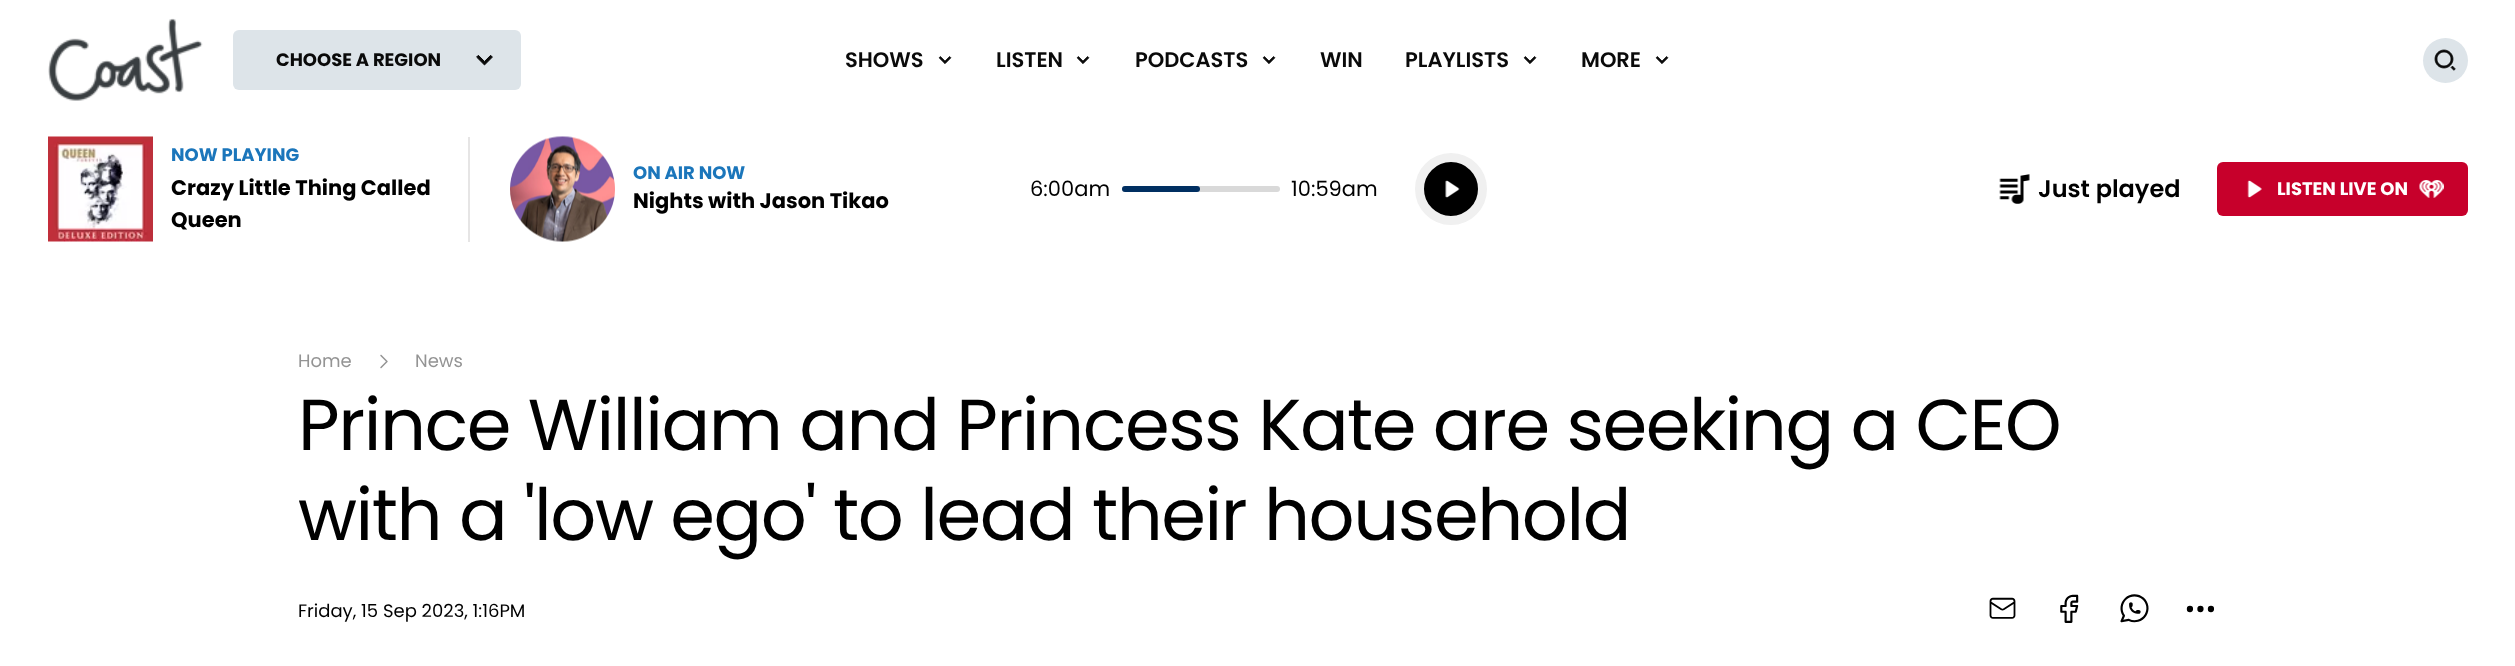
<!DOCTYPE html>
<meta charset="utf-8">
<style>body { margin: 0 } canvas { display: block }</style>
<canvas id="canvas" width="2515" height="666"></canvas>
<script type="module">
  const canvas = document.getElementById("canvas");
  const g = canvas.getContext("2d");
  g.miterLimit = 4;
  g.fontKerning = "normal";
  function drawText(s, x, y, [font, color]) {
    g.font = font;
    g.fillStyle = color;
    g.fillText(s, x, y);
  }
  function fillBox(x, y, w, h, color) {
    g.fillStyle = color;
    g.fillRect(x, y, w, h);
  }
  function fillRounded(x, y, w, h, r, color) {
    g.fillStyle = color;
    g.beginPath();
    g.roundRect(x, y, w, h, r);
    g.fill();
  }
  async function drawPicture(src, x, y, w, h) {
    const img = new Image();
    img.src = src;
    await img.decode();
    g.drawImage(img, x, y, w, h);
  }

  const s1 = ["bold 18px Poppins", "#0A0A0A"];
  const s2 = ["600 21px Poppins", "#0A0A0A"];
  const s3 = ["bold 18px Poppins", "#1B76BB"];
  const s4 = ["bold 21px Poppins", "#000000"];
  const s5 = ["21px Poppins", "#000000"];
  const s6 = ["600 24px Poppins", "#000000"];
  const s7 = ["bold 18px Poppins", "#FFFFFF"];
  const s8 = ["18px Poppins", "#949494"];
  const s9 = ["72px Poppins", "#000000"];
  const s10 = ["18px Poppins", "#000000"];

  fillBox(0, 0, 2515, 666, "#FFFFFF");
  await drawPicture("pic1.png", 48, 18, 155, 83);
  fillRounded(233, 30, 288, 60, 6, "#DDE4E9");
  drawText("CHOOSE A REGION", 276, 66, s1);
  await drawPicture("pic2.png", 476, 55, 17, 11);
  drawText("SHOWS", 845, 67, s2);
  await drawPicture("pic3.png", 938, 56, 14, 8);
  drawText("LISTEN", 996, 67, s2);
  await drawPicture("pic3.png", 1076, 56, 14, 8);
  drawText("PODCASTS", 1135, 67, s2);
  await drawPicture("pic4.png", 1262, 56, 14, 8);
  drawText("WIN", 1320, 67, s2);
  drawText("PLAYLISTS", 1405, 67, s2);
  await drawPicture("pic5.png", 1523, 56, 14, 8);
  drawText("MORE", 1581, 67, s2);
  await drawPicture("pic3.png", 1655, 56, 14, 8);
  g.fillStyle = "#DDE4E9";
  g.beginPath();
  g.arc(2445.5, 60.5, 22.5, 0, Math.PI * 2);
  g.fill();
  await drawPicture("pic6.png", 2434, 49, 22, 22);
  await drawPicture("pic7.png", 48, 136, 105, 106);
  drawText("NOW PLAYING", 171, 161, s3);
  drawText("Crazy Little Thing Called", 171, 195, s4);
  drawText("Queen", 171, 227, s4);
  fillBox(468, 137, 2, 105, "#E6E5E5");
  await drawPicture("pic8.png", 510, 136, 105, 106);
  drawText("ON AIR NOW", 633, 179, s3);
  drawText("Nights with Jason Tikao", 633, 208, s4);
  drawText("6:00am", 1030, 196, s5);
  fillRounded(1122, 186, 158, 6, 3, "#D9D9D9");
  fillRounded(1122, 186, 78, 6, 3, "#002F61");
  drawText("10:59am", 1291, 196, s5);
  g.beginPath();
  g.arc(1451, 189, 31.5, 0, Math.PI * 2);
  g.fill();
  g.strokeStyle = "#F0F0F0";
  g.lineWidth = 9;
  g.stroke();
  await drawPicture("pic9.png", 1445, 180, 15, 18);
  await drawPicture("pic10.png", 1999, 174, 31, 30);
  drawText("Just played", 2038, 197, s6);
  fillRounded(2217, 162, 251, 54, 6, "#C7002B");
  await drawPicture("pic11.png", 2247, 180, 15, 18);
  drawText("LISTEN LIVE ON", 2277, 195, s7);
  await drawPicture("pic12.png", 2419, 180, 25, 18);
  drawText("Home", 298, 367, s8);
  await drawPicture("pic13.png", 380, 354, 8, 15);
  drawText("News", 415, 367, s8);
  g.letterSpacing = "-1.45px";
  drawText("Prince William and Princess Kate are seeking a CEO", 298, 450, s9);
  drawText("with a 'low ego' to lead their household", 298, 540, s9);
  g.letterSpacing = "0px";
  drawText("Friday, 15 Sep 2023, 1:16PM", 298, 617, s10);
  await drawPicture("pic14.png", 1989, 597, 27, 22);
  await drawPicture("pic15.png", 2060, 594, 19, 29);
  await drawPicture("pic16.png", 2120, 594, 29, 29);
  await drawPicture("pic17.png", 2186, 605, 28, 8);
</script>
